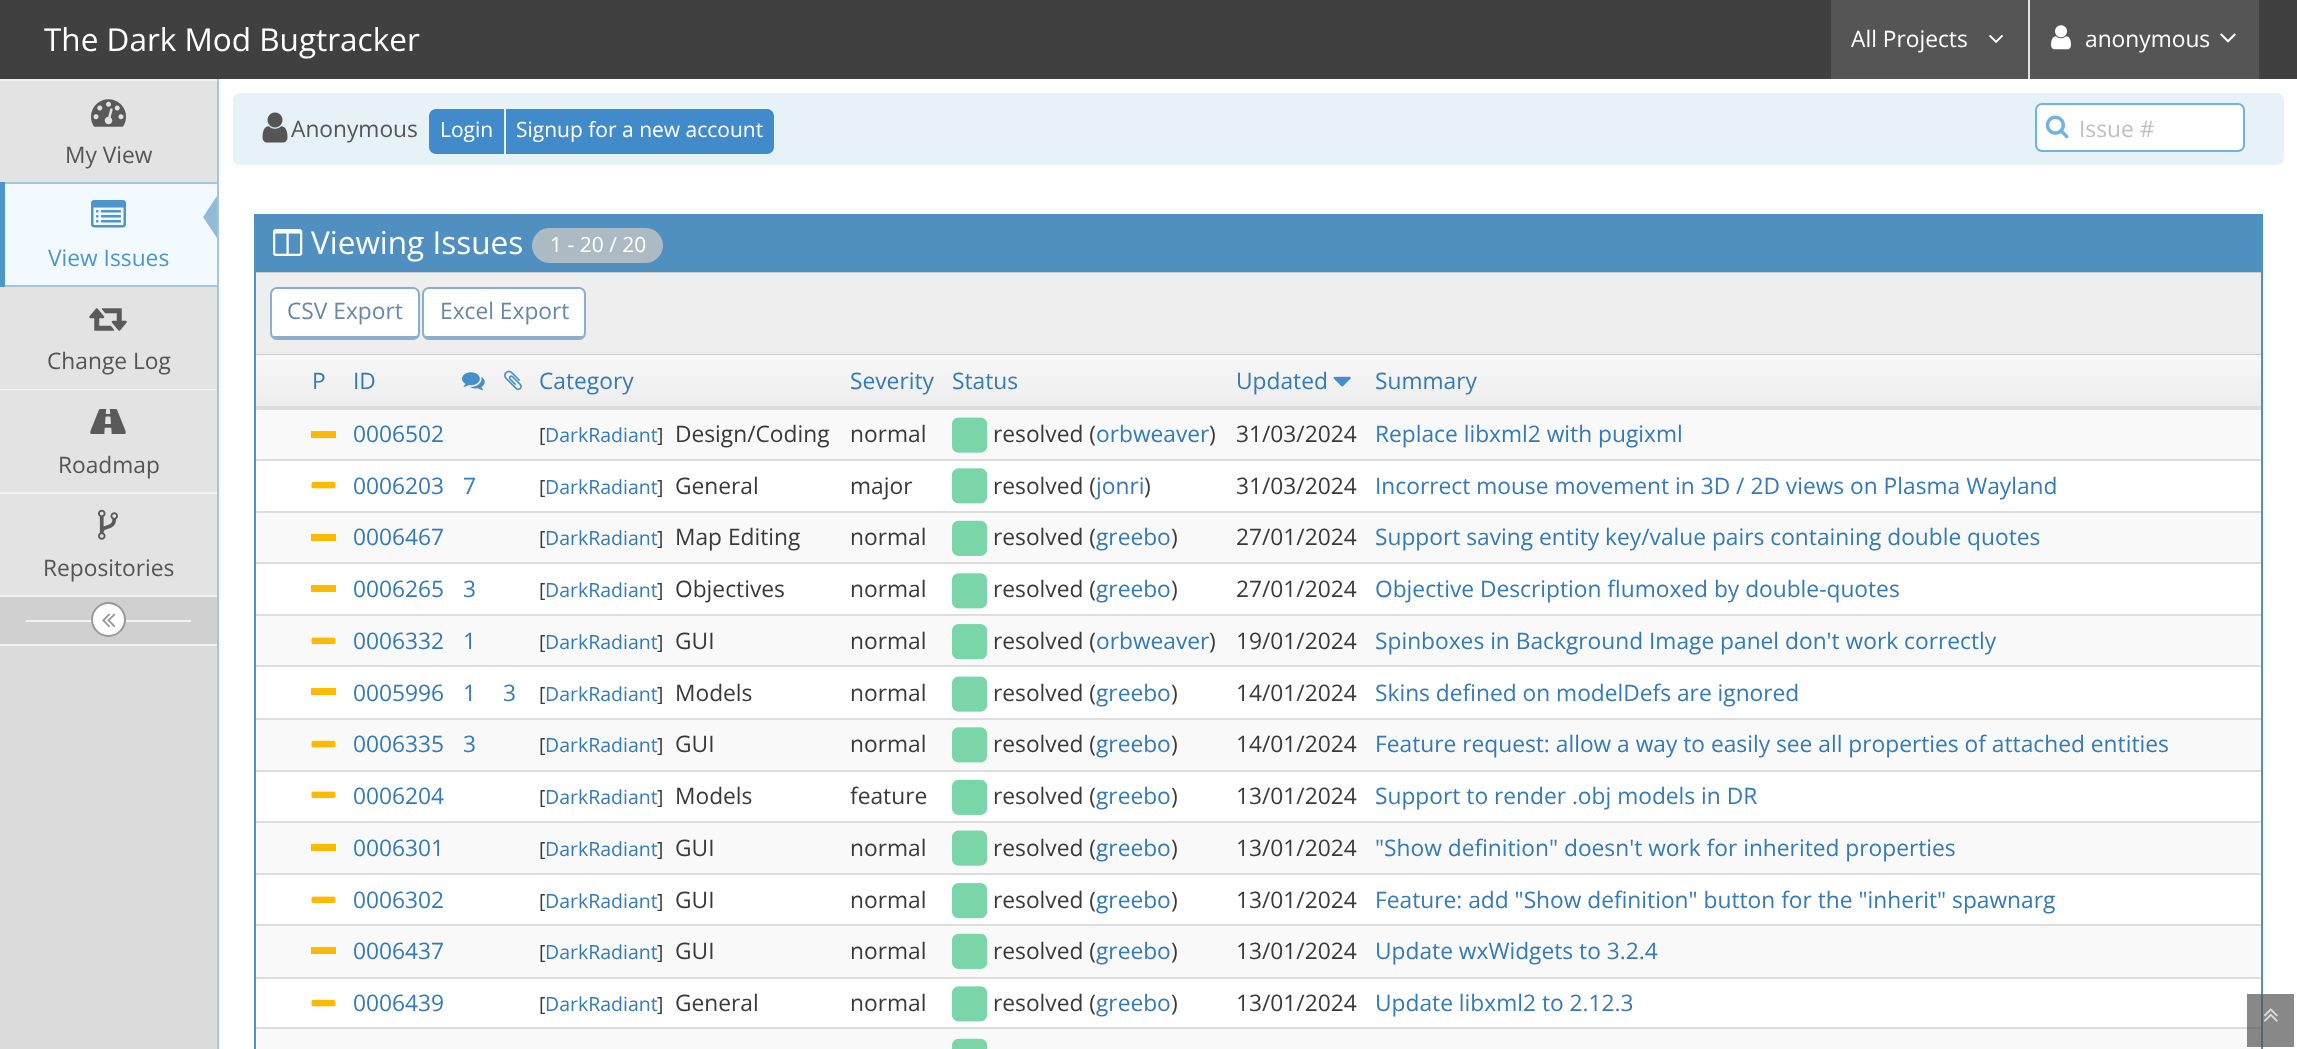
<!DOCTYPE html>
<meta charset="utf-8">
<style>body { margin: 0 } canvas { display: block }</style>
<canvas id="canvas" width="2297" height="1049"></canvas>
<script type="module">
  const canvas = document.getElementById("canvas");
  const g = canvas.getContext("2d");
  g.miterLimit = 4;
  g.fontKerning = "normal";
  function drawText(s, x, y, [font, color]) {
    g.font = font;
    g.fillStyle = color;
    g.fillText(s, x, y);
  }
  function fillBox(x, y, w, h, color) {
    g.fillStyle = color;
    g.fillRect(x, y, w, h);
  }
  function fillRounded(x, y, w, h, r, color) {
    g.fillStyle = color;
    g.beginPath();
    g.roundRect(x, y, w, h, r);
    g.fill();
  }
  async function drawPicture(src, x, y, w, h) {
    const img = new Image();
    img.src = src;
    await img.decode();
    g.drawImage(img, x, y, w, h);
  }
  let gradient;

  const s1 = ["31.5px Open Sans", "#FFFFFF"];
  const s2 = ["22.75px Open Sans", "#FFFFFF"];
  const s3 = ["22.75px Open Sans", "#555555"];
  const s4 = ["22.75px Open Sans", "#4D96CB"];
  const s5 = ["21px Open Sans", "#FFFFFF"];
  const s6 = ["22.75px Open Sans", "#C0C0C0"];
  const s7 = ["22.75px Open Sans", "#6688A6"];
  const s8 = ["22.75px Open Sans", "#337AB7"];
  const s9 = ["19.5px Open Sans", "#393939"];
  const s10 = ["19.5px Open Sans", "#337AB7"];
  const s11 = ["22.75px Open Sans", "#393939"];

  fillBox(0, 0, 2297, 1049, "#FFFFFF");
  fillBox(0, 0, 2297, 79, "#404040");
  drawText("The Dark Mod Bugtracker", 44, 51, s1);
  fillBox(1831, 0, 197, 79, "#555555");
  drawText("All Projects", 1851, 47, s2);
  await drawPicture("pic1.png", 1989, 35, 14, 8);
  fillBox(2028, 0, 2, 79, "#E1E1E1");
  fillBox(2030, 0, 229, 79, "#555555");
  await drawPicture("pic2.png", 2051, 25, 20, 25);
  drawText("anonymous", 2085, 47, s2);
  await drawPicture("pic3.png", 2220, 33, 16, 10);
  fillBox(0, 646, 217, 403, "#DBDBDB");
  fillBox(217, 79, 2, 970, "#A4C6DD");
  fillBox(0, 79, 217, 2, "#F2F2F2");
  fillBox(0, 81, 217, 101, "#E3E3E3");
  await drawPicture("pic4.png", 91, 99, 35, 28);
  drawText("My View", 65, 163, s3);
  fillBox(0, 182, 217, 2, "#A4C6DD");
  fillBox(0, 285, 217, 2, "#A4C6DD");
  fillBox(0, 182, 5, 105, "#4D96CB");
  fillBox(5, 184, 212, 101, "#F3FAFF");
  await drawPicture("pic5.png", 91, 200, 35, 28);
  g.fillStyle = "#91BAD6";
  g.beginPath();
  g.moveTo(217, 196);
  g.lineTo(217, 238);
  g.lineTo(203, 217);
  g.closePath();
  g.fill();
  drawText("View Issues", 48, 266, s4);
  fillBox(0, 287, 217, 102, "#E3E3E3");
  await drawPicture("pic6.png", 89, 308, 38, 23);
  drawText("Change Log", 47, 369, s3);
  fillBox(0, 389, 217, 1, "#F2F2F2");
  fillBox(0, 390, 217, 102, "#E3E3E3");
  await drawPicture("pic7.png", 90, 409, 36, 25);
  drawText("Roadmap", 58, 473, s3);
  fillBox(0, 492, 217, 2, "#F2F2F2");
  fillBox(0, 595, 217, 2, "#F2F2F2");
  fillBox(0, 494, 217, 101, "#E3E3E3");
  await drawPicture("pic8.png", 98, 509, 20, 31);
  drawText("Repositories", 43, 576, s3);
  fillBox(0, 597, 217, 47, "#D0D0D0");
  fillBox(0, 644, 217, 2, "#F2F2F2");
  fillBox(26, 620, 165, 2, "#F2F2F2");
  g.fillStyle = "#FFFFFF";
  g.beginPath();
  g.arc(108.5, 619.5, 16.5, 0, Math.PI * 2);
  g.fill();
  g.strokeStyle = "#999999";
  g.lineWidth = 2;
  g.stroke();
  await drawPicture("pic9.png", 102, 613, 14, 15);
  fillRounded(233, 93, 2051, 72, 7, "#E7F2F8");
  await drawPicture("pic10.png", 262, 112, 26, 31);
  drawText("Anonymous", 291, 137, s3);
  g.fillStyle = "#428BCA";
  g.beginPath();
  g.roundRect(430, 110, 73, 43, [6, 0, 0, 6]);
  g.fill();
  g.strokeStyle = "#428BCA";
  g.stroke();
  drawText("Login", 440, 137, s5);
  g.fillStyle = "#428BCA";
  g.beginPath();
  g.roundRect(507, 110, 266, 43, [0, 6, 6, 0]);
  g.fill();
  g.stroke();
  drawText("Signup for a new account", 516, 137, s5);
  g.beginPath();
  g.roundRect(2036, 104, 208, 47, 6);
  g.fill();
  g.strokeStyle = "#6FB3E0";
  g.stroke();
  await drawPicture("pic11.png", 2045, 115, 24, 24);
  drawText("Issue #", 2079, 137, s6);
  g.strokeStyle = "#5090C1";
  g.strokeRect(255, 215, 2007, 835);
  fillBox(256, 216, 2005, 56, "#5090C1");
  await drawPicture("pic12.png", 273, 229, 30, 27);
  drawText("Viewing Issues", 311, 254, s1);
  fillRounded(532, 228, 131, 35, 17.5, "#ABBAC3");
  drawText("1 - 20 / 20", 550, 252, s5);
  fillBox(256, 273, 2005, 81, "#EEEEEE");
  fillBox(256, 272, 2005, 1, "#CCCCCC");
  fillBox(256, 354, 2005, 1, "#CCCCCC");
  g.fillStyle = "#FFFFFF";
  g.beginPath();
  g.moveTo(276, 289);
  g.lineTo(413, 289);
  g.bezierCurveTo(416, 289, 418, 291, 418, 294);
  g.lineTo(418, 332);
  g.bezierCurveTo(418, 334, 416, 336, 413, 336);
  g.lineTo(276, 336);
  g.bezierCurveTo(274, 336, 271, 334, 271, 332);
  g.lineTo(271, 294);
  g.bezierCurveTo(271, 291, 274, 289, 276, 289);
  g.closePath();
  g.fill();
  g.beginPath();
  g.roundRect(271, 288, 148, 51, 6);
  g.strokeStyle = "#8AAFCE";
  g.stroke();
  fillBox(273, 336, 144, 2, "#8AAFCE");
  drawText("CSV Export", 287, 319, s7);
  g.fillStyle = "#FFFFFF";
  g.beginPath();
  g.moveTo(429, 289);
  g.lineTo(579, 289);
  g.bezierCurveTo(582, 289, 584, 291, 584, 294);
  g.lineTo(584, 332);
  g.bezierCurveTo(584, 334, 582, 336, 579, 336);
  g.lineTo(429, 336);
  g.bezierCurveTo(426, 336, 424, 334, 424, 332);
  g.lineTo(424, 294);
  g.bezierCurveTo(424, 291, 426, 289, 429, 289);
  g.closePath();
  g.fill();
  g.beginPath();
  g.roundRect(423, 288, 162, 51, 6);
  g.stroke();
  fillBox(425, 336, 158, 2, "#8AAFCE");
  drawText("Excel Export", 440, 319, s7);
  gradient = g.createLinearGradient(1258, 355, 1258, 408);
  gradient.addColorStop(0, "#F8F8F8");
  gradient.addColorStop(1, "#ECECEC");
  g.fillStyle = gradient;
  g.fillRect(256, 355, 2005, 51);
  drawText("P", 312, 389, s8);
  drawText("ID", 353, 389, s8);
  await drawPicture("pic13.png", 462, 372, 23, 19);
  await drawPicture("pic14.png", 504, 370, 18, 21);
  drawText("Category", 539, 389, s8);
  drawText("Severity", 850, 389, s8);
  drawText("Status", 952, 389, s8);
  drawText("Updated", 1236, 389, s8);
  await drawPicture("pic15.png", 1333, 376, 18, 11);
  fillBox(256, 406, 2005, 4, "#DDDDDD");
  drawText("Summary", 1375, 389, s8);
  fillBox(256, 410, 2005, 49, "#F9F9F9");
  fillBox(311, 431, 25, 7, "#FEB902");
  drawText("0006502", 353, 442, s8);
  drawText("[", 539, 442, s9);
  drawText("DarkRadiant", 545, 442, s10);
  drawText("]", 657, 442, s9);
  drawText("Design/Coding", 675, 442, s11);
  drawText("normal", 850, 442, s11);
  await drawPicture("pic16.png", 952, 417, 36, 36);
  drawText("resolved (", 993, 442, s11);
  drawText("orbweaver", 1096, 442, s8);
  drawText(")", 1209, 442, s11);
  drawText("31/03/2024", 1236, 442, s11);
  drawText("Replace libxml2 with pugixml", 1375, 442, s8);
  await drawPicture("pic17.png", 311, 481, 25, 8);
  drawText("0006203", 353, 494, s8);
  drawText("7", 463, 494, s8);
  drawText("[", 539, 494, s9);
  drawText("DarkRadiant", 545, 494, s10);
  drawText("]", 657, 494, s9);
  drawText("General", 675, 494, s11);
  drawText("major", 850, 494, s11);
  await drawPicture("pic18.png", 952, 468, 36, 36);
  drawText("resolved (", 993, 494, s11);
  drawText("jonri", 1096, 494, s8);
  drawText(")", 1144, 494, s11);
  drawText("31/03/2024", 1236, 494, s11);
  fillBox(256, 459, 2005, 2, "#DDDDDD");
  drawText("Incorrect mouse movement in 3D / 2D views on Plasma Wayland", 1375, 494, s8);
  fillBox(256, 513, 2005, 49, "#F9F9F9");
  fillBox(311, 534, 25, 7, "#FEB902");
  drawText("0006467", 353, 545, s8);
  drawText("[", 539, 545, s9);
  drawText("DarkRadiant", 545, 545, s10);
  drawText("]", 657, 545, s9);
  drawText("Map Editing", 675, 545, s11);
  drawText("normal", 850, 545, s11);
  await drawPicture("pic19.png", 952, 520, 36, 36);
  drawText("resolved (", 993, 545, s11);
  drawText("greebo", 1096, 545, s8);
  drawText(")", 1171, 545, s11);
  drawText("27/01/2024", 1236, 545, s11);
  fillBox(256, 511, 2005, 2, "#DDDDDD");
  drawText("Support saving entity key/value pairs containing double quotes", 1375, 545, s8);
  fillBox(311, 585, 25, 7, "#FEB902");
  drawText("0006265", 353, 597, s8);
  drawText("3", 463, 597, s8);
  drawText("[", 539, 597, s9);
  drawText("DarkRadiant", 545, 597, s10);
  drawText("]", 657, 597, s9);
  drawText("Objectives", 675, 597, s11);
  drawText("normal", 850, 597, s11);
  await drawPicture("pic18.png", 952, 573, 36, 36);
  drawText("resolved (", 993, 597, s11);
  drawText("greebo", 1096, 597, s8);
  drawText(")", 1171, 597, s11);
  drawText("27/01/2024", 1236, 597, s11);
  fillBox(256, 562, 2005, 2, "#DDDDDD");
  drawText("Objective Description flumoxed by double-quotes", 1375, 597, s8);
  fillBox(256, 616, 2005, 49, "#F9F9F9");
  await drawPicture("pic20.png", 311, 637, 25, 8);
  drawText("0006332", 353, 649, s8);
  drawText("1", 463, 649, s8);
  drawText("[", 539, 649, s9);
  drawText("DarkRadiant", 545, 649, s10);
  drawText("]", 657, 649, s9);
  drawText("GUI", 675, 649, s11);
  drawText("normal", 850, 649, s11);
  await drawPicture("pic21.png", 952, 624, 36, 36);
  drawText("resolved (", 993, 649, s11);
  drawText("orbweaver", 1096, 649, s8);
  drawText(")", 1209, 649, s11);
  drawText("19/01/2024", 1236, 649, s11);
  fillBox(256, 614, 2005, 2, "#DDDDDD");
  drawText("Spinboxes in Background Image panel don't work correctly", 1375, 649, s8);
  fillBox(311, 688, 25, 7, "#FEB902");
  drawText("0005996", 353, 701, s8);
  drawText("1", 463, 701, s8);
  drawText("3", 503, 701, s8);
  drawText("[", 539, 701, s9);
  drawText("DarkRadiant", 545, 701, s10);
  drawText("]", 657, 701, s9);
  drawText("Models", 675, 701, s11);
  drawText("normal", 850, 701, s11);
  await drawPicture("pic22.png", 952, 676, 36, 36);
  drawText("resolved (", 993, 701, s11);
  drawText("greebo", 1096, 701, s8);
  drawText(")", 1171, 701, s11);
  drawText("14/01/2024", 1236, 701, s11);
  fillBox(256, 665, 2005, 2, "#DDDDDD");
  drawText("Skins defined on modelDefs are ignored", 1375, 701, s8);
  fillBox(256, 720, 2005, 50, "#F9F9F9");
  await drawPicture("pic23.png", 311, 740, 25, 8);
  drawText("0006335", 353, 752, s8);
  drawText("3", 463, 752, s8);
  drawText("[", 539, 752, s9);
  drawText("DarkRadiant", 545, 752, s10);
  drawText("]", 657, 752, s9);
  drawText("GUI", 675, 752, s11);
  drawText("normal", 850, 752, s11);
  await drawPicture("pic24.png", 952, 727, 36, 36);
  drawText("resolved (", 993, 752, s11);
  drawText("greebo", 1096, 752, s8);
  drawText(")", 1171, 752, s11);
  drawText("14/01/2024", 1236, 752, s11);
  fillBox(256, 718, 2005, 2, "#DDDDDD");
  drawText("Feature request: allow a way to easily see all properties of attached entities", 1375, 752, s8);
  await drawPicture("pic25.png", 311, 791, 25, 8);
  drawText("0006204", 353, 804, s8);
  drawText("[", 539, 804, s9);
  drawText("DarkRadiant", 545, 804, s10);
  drawText("]", 657, 804, s9);
  drawText("Models", 675, 804, s11);
  drawText("feature", 850, 804, s11);
  await drawPicture("pic26.png", 952, 779, 36, 36);
  drawText("resolved (", 993, 804, s11);
  drawText("greebo", 1096, 804, s8);
  drawText(")", 1171, 804, s11);
  drawText("13/01/2024", 1236, 804, s11);
  fillBox(256, 770, 2005, 2, "#DDDDDD");
  drawText("Support to render .obj models in DR", 1375, 804, s8);
  fillBox(256, 823, 2005, 50, "#F9F9F9");
  fillBox(311, 844, 25, 7, "#FEB902");
  drawText("0006301", 353, 856, s8);
  drawText("[", 539, 856, s9);
  drawText("DarkRadiant", 545, 856, s10);
  drawText("]", 657, 856, s9);
  drawText("GUI", 675, 856, s11);
  drawText("normal", 850, 856, s11);
  await drawPicture("pic16.png", 952, 830, 36, 36);
  drawText("resolved (", 993, 856, s11);
  drawText("greebo", 1096, 856, s8);
  drawText(")", 1171, 856, s11);
  drawText("13/01/2024", 1236, 856, s11);
  fillBox(256, 821, 2005, 2, "#DDDDDD");
  drawText("\"Show definition\" doesn't work for inherited properties", 1375, 856, s8);
  await drawPicture("pic25.png", 311, 896, 25, 8);
  drawText("0006302", 353, 908, s8);
  drawText("[", 539, 908, s9);
  drawText("DarkRadiant", 545, 908, s10);
  drawText("]", 657, 908, s9);
  drawText("GUI", 675, 908, s11);
  drawText("normal", 850, 908, s11);
  await drawPicture("pic27.png", 952, 883, 36, 36);
  drawText("resolved (", 993, 908, s11);
  drawText("greebo", 1096, 908, s8);
  drawText(")", 1171, 908, s11);
  drawText("13/01/2024", 1236, 908, s11);
  fillBox(256, 873, 2005, 2, "#DDDDDD");
  drawText("Feature: add \"Show definition\" button for the \"inherit\" spawnarg", 1375, 908, s8);
  fillBox(256, 926, 2005, 51, "#F9F9F9");
  fillBox(311, 947, 25, 7, "#FEB902");
  drawText("0006437", 353, 959, s8);
  drawText("[", 539, 959, s9);
  drawText("DarkRadiant", 545, 959, s10);
  drawText("]", 657, 959, s9);
  drawText("GUI", 675, 959, s11);
  drawText("normal", 850, 959, s11);
  await drawPicture("pic19.png", 952, 933, 36, 36);
  drawText("resolved (", 993, 959, s11);
  drawText("greebo", 1096, 959, s8);
  drawText(")", 1171, 959, s11);
  drawText("13/01/2024", 1236, 959, s11);
  fillBox(256, 924, 2005, 2, "#DDDDDD");
  drawText("Update wxWidgets to 3.2.4", 1375, 959, s8);
  await drawPicture("pic17.png", 311, 999, 25, 8);
  drawText("0006439", 353, 1011, s8);
  drawText("[", 539, 1011, s9);
  drawText("DarkRadiant", 545, 1011, s10);
  drawText("]", 657, 1011, s9);
  drawText("General", 675, 1011, s11);
  drawText("normal", 850, 1011, s11);
  await drawPicture("pic18.png", 952, 986, 36, 36);
  drawText("resolved (", 993, 1011, s11);
  drawText("greebo", 1096, 1011, s8);
  drawText(")", 1171, 1011, s11);
  drawText("13/01/2024", 1236, 1011, s11);
  fillBox(256, 977, 2005, 2, "#DDDDDD");
  drawText("Update libxml2 to 2.12.3", 1375, 1011, s8);
  fillBox(256, 1029, 2005, 20, "#F9F9F9");
  fillBox(256, 1027, 2005, 2, "#DDDDDD");
  await drawPicture("pic28.png", 952, 1038, 36, 11);
  fillBox(2247, 994, 47, 53, "rgba(85, 85, 85, 0.7)");
  await drawPicture("pic29.png", 2263, 1008, 15, 14);
</script>
